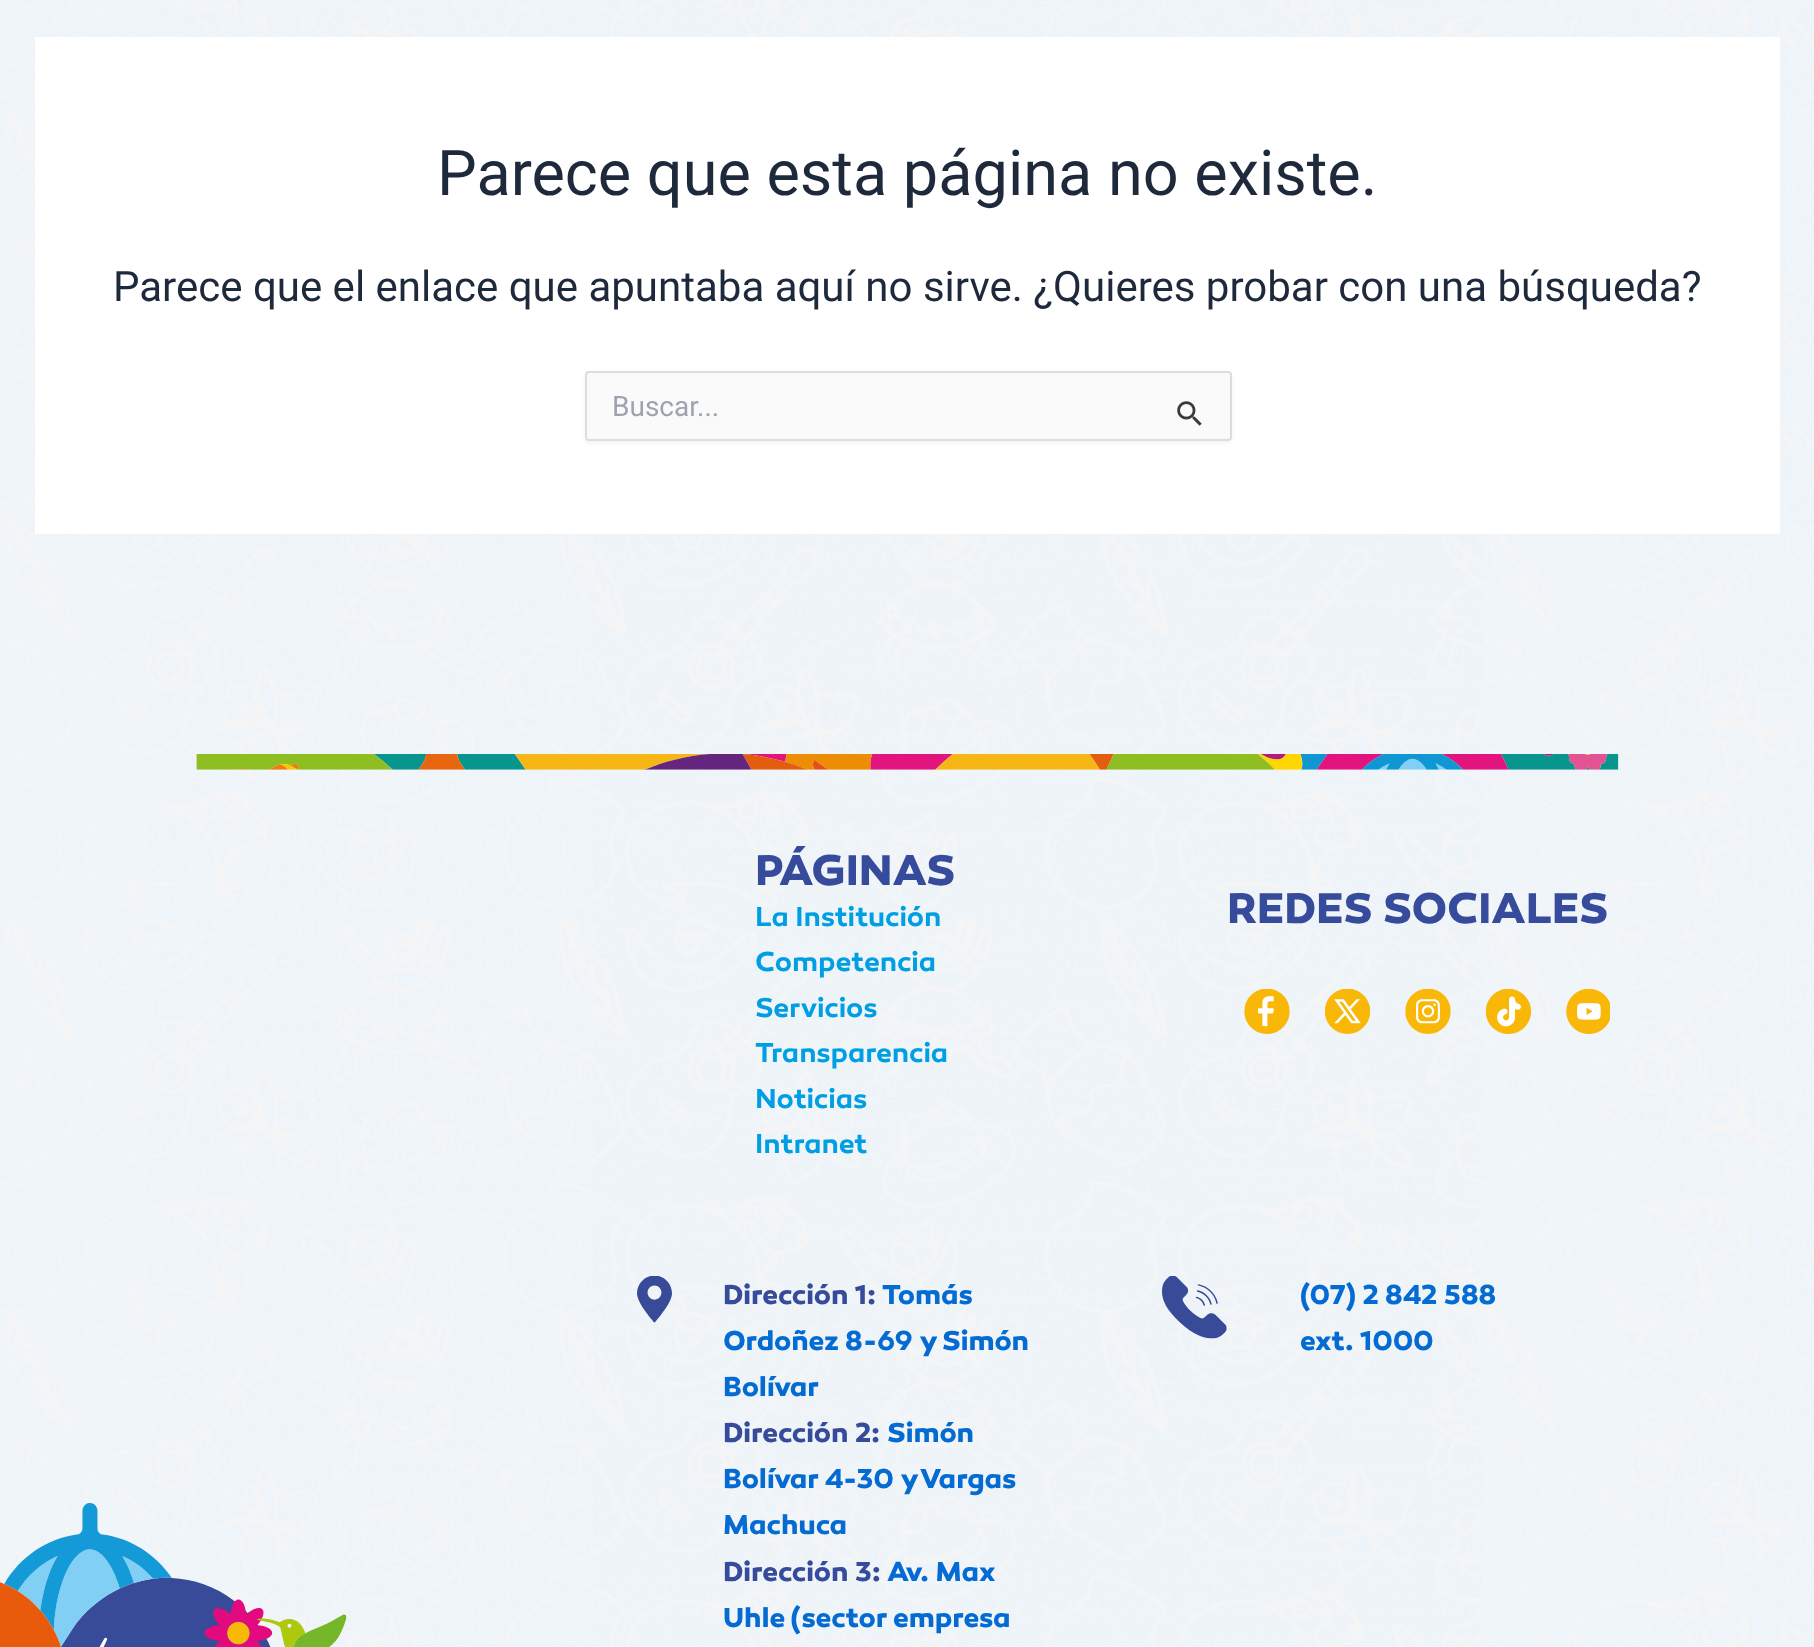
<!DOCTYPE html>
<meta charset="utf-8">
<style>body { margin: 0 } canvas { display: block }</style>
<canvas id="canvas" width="1814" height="1647"></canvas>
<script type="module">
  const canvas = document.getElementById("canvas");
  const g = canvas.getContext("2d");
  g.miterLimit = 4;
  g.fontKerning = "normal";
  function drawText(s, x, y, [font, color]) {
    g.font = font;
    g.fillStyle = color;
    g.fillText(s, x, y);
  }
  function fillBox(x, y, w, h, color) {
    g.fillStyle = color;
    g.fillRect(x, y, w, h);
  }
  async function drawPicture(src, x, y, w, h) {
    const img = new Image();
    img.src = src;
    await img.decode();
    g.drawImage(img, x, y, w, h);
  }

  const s1 = ["63px Roboto", "#1E293B"];
  const s2 = ["42px Roboto", "#1E293B"];
  const s3 = ["28px Roboto", "#9CA3AF"];
  const s4 = ["bold 43.75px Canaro", "#364B9B"];
  const s5 = ["600 28px Canaro", "#009FE3"];
  const s6 = ["bold 28px Canaro", "#364B9B"];
  const s7 = ["bold 28px Canaro", "#046BD2"];

  fillBox(0, 0, 1814, 1647, "#F0F5FA");
  await drawPicture("pic1.png", 0, 0, 1814, 1647);
  fillBox(35, 37, 1745, 497, "#FFFFFF");
  drawText("Parece que esta página no existe.", 437, 195, s1);
  drawText("Parece que el enlace que apuntaba aquí no sirve. ¿Quieres probar con una búsqueda?", 113, 301, s2);
  g.fillStyle = "rgba(0, 0, 0, 0.05)";
  g.filter = "blur(2px)";
  g.beginPath();
  g.roundRect(585, 373, 647, 70, 4);
  g.fill();
  g.filter = "none";
  g.fillStyle = "#FAFAFA";
  g.beginPath();
  g.roundRect(586, 372, 645, 68, 3);
  g.fill();
  g.strokeStyle = "#DDDDDD";
  g.lineWidth = 2;
  g.stroke();
  drawText("Buscar...", 612, 416, s3);
  await drawPicture("pic2.png", 1177, 401, 25, 25);
  await drawPicture("pic3.png", 196, 754, 1423, 16);
  await drawPicture("pic4.png", 0, 1503, 347, 144);
  drawText("PÁGINAS", 755, 885, s4);
  drawText("La Institución", 755, 926, s5);
  drawText("Competencia", 755, 971, s5);
  drawText("Servicios", 755, 1017, s5);
  drawText("Transparencia", 755, 1062, s5);
  drawText("Noticias", 755, 1108, s5);
  drawText("Intranet", 755, 1153, s5);
  drawText("REDES SOCIALES", 1227, 923, s4);
  await drawPicture("pic5.png", 1244, 989, 46, 45);
  await drawPicture("pic6.png", 1325, 989, 45, 45);
  await drawPicture("pic7.png", 1405, 989, 46, 45);
  await drawPicture("pic8.png", 1486, 989, 45, 45);
  await drawPicture("pic9.png", 1566, 989, 44, 45);
  await drawPicture("pic10.png", 637, 1276, 35, 47);
  drawText("Dirección 1:", 723, 1304, s6);
  drawText("Tomás", 882, 1304, s7);
  drawText("Ordoñez 8-69 y Simón", 723, 1350, s7);
  drawText("Bolívar", 723, 1396, s7);
  drawText("Dirección 2:", 723, 1442, s6);
  drawText("Simón", 887, 1442, s7);
  drawText("Bolívar 4-30 y Vargas", 723, 1488, s7);
  drawText("Machuca", 723, 1534, s7);
  drawText("Dirección 3:", 723, 1581, s6);
  drawText("Av. Max", 887, 1581, s7);
  drawText("Uhle (sector empresa", 723, 1627, s7);
  await drawPicture("pic11.png", 1162, 1276, 65, 63);
  drawText("(07) 2 842 588", 1300, 1304, s7);
  drawText("ext. 1000", 1300, 1350, s7);
</script>
